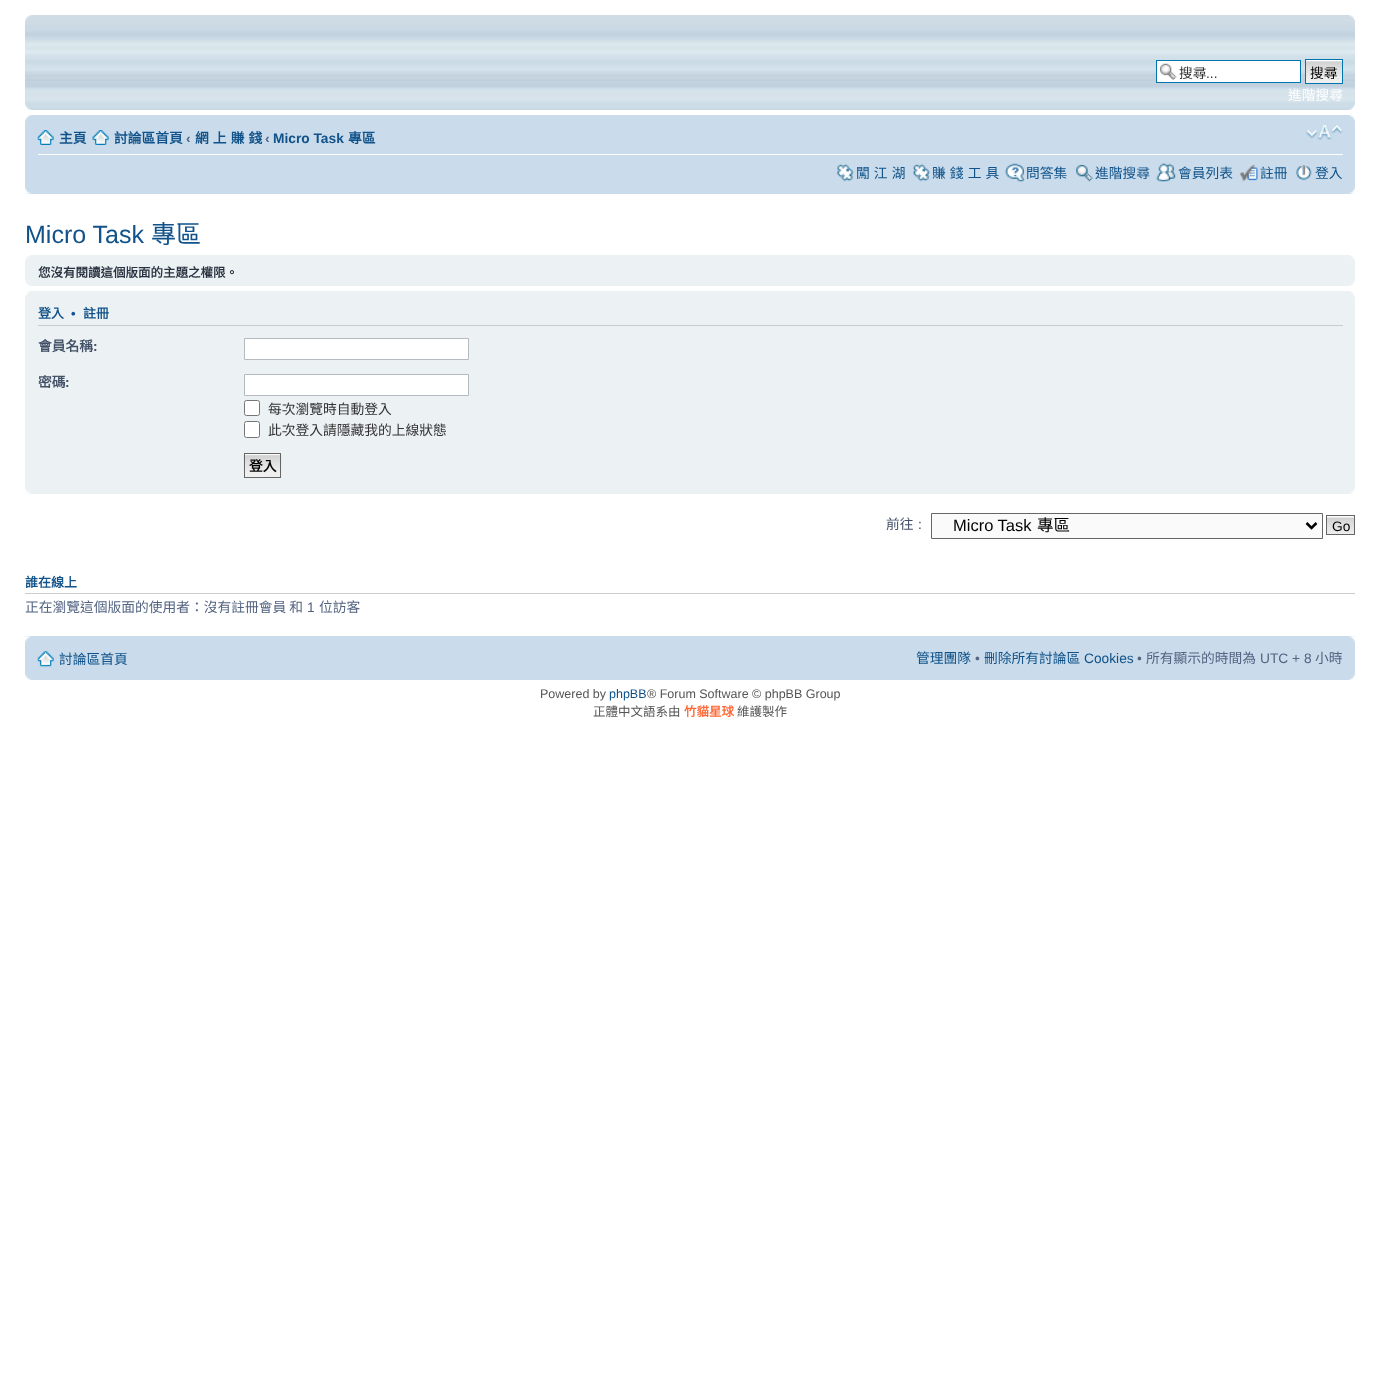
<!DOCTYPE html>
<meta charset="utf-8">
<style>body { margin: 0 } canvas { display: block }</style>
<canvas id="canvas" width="1380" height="1380"></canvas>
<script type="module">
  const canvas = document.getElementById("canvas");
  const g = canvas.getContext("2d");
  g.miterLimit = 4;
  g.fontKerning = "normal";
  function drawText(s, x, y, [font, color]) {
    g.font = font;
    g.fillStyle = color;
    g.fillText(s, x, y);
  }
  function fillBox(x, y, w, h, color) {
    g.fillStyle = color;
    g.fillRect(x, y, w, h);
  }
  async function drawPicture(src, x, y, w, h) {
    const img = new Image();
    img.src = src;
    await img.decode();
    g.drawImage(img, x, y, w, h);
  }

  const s1 = ["13.75px Noto Sans CJK TC", "#333333"];
  const s2 = ["13.75px Liberation Sans", "#333333"];
  const s3 = ["13.75px Noto Sans CJK TC", "#000000"];
  const s4 = ["13.75px Noto Sans CJK TC", "#FFFFFF"];
  const s5 = ["bold 13.75px Noto Sans CJK TC", "#105289"];
  const s6 = ["bold 13.75px Liberation Sans", "#536482"];
  const s7 = ["bold 13.75px Liberation Sans", "#105289"];
  const s8 = ["13.75px Noto Sans CJK TC", "#105289"];
  const s9 = ["25px Liberation Sans", "#105289"];
  const s10 = ["25px Noto Sans CJK TC", "#105289"];
  const s11 = ["bold 12.5px Noto Sans CJK TC", "#28313F"];
  const s12 = ["bold 13px Noto Sans CJK TC", "#105289"];
  const s13 = ["bold 13px Liberation Sans", "#115098"];
  const s14 = ["bold 13.75px Noto Sans CJK TC", "#425067"];
  const s15 = ["bold 13.75px Liberation Sans", "#425067"];
  const s16 = ["bold 13.75px Noto Sans CJK TC", "#000000"];
  const s17 = ["13.75px Noto Sans CJK TC", "#425067"];
  const s18 = ["13.75px Liberation Sans", "#425067"];
  const s19 = ["16.5px Liberation Sans", "#000000"];
  const s20 = ["16.5px Noto Sans CJK TC", "#000000"];
  const s21 = ["13.75px Liberation Sans", "#000000"];
  const s22 = ["13.75px Noto Sans CJK TC", "#536482"];
  const s23 = ["13.75px Liberation Sans", "#536482"];
  const s24 = ["13.75px Liberation Sans", "#105289"];
  const s25 = ["12.5px Liberation Sans", "#555555"];
  const s26 = ["12.5px Liberation Sans", "#105289"];
  const s27 = ["12.5px Noto Sans CJK TC", "#555555"];
  const s28 = ["bold 12.5px Noto Sans CJK TC", "#FF6633"];

  fillBox(0, 0, 1380, 1380, "#FFFFFF");
  await drawPicture("pic1.png", 25, 15, 1330, 95);
  await drawPicture("pic2.png", 25, 15, 7, 6);
  await drawPicture("pic3.png", 1349, 15, 6, 6);
  fillBox(1157, 61, 143, 21, "#FFFFFF");
  await drawPicture("pic4.png", 1159, 63, 18, 17);
  g.strokeStyle = "#0075B0";
  g.strokeRect(1156.5, 60.5, 144, 22);
  drawText("搜尋", 1179, 78, s1);
  drawText("...", 1206, 78, s2);
  await drawPicture("pic5.png", 1306, 60, 36, 23);
  g.strokeRect(1305.5, 59.5, 37, 24);
  drawText("搜尋", 1310, 78, s3);
  drawText("進階搜尋", 1288, 100, s4);
  await drawPicture("pic6.png", 25, 104, 7, 6);
  await drawPicture("pic7.png", 1349, 104, 6, 6);
  fillBox(25, 115, 1330, 79, "#CADCEB");
  await drawPicture("pic8.png", 25, 115, 7, 6);
  await drawPicture("pic9.png", 1348, 115, 7, 6);
  fillBox(38, 154, 1305, 1, "#FFFFFF");
  await drawPicture("pic10.png", 37, 130, 17, 15);
  drawText("主頁", 59, 143, s5);
  await drawPicture("pic11.png", 92, 130, 17, 15);
  drawText("討論區首頁", 114, 143, s5);
  drawText("‹", 186, 143, s6);
  g.wordSpacing = "1px";
  drawText("網 上 賺 錢", 195, 143, s5);
  g.wordSpacing = "0px";
  drawText("‹", 265, 143, s6);
  drawText("Micro Task", 273, 143, s7);
  drawText("專區", 348, 143, s5);
  await drawPicture("pic12.png", 1306, 125, 37, 15);
  await drawPicture("pic13.png", 836, 163, 18, 19);
  g.wordSpacing = "1px";
  drawText("闖 江 湖", 856, 178, s8);
  await drawPicture("pic14.png", 912, 163, 18, 19);
  drawText("賺 錢 工 具", 932, 178, s8);
  await drawPicture("pic15.png", 1005, 163, 20, 19);
  g.wordSpacing = "0px";
  drawText("問答集", 1026, 178, s8);
  await drawPicture("pic16.png", 1076, 164, 17, 18);
  drawText("進階搜尋", 1095, 178, s8);
  await drawPicture("pic17.png", 1156, 163, 20, 19);
  drawText("會員列表", 1178, 178, s8);
  await drawPicture("pic18.png", 1239, 164, 19, 18);
  drawText("註冊", 1260, 178, s8);
  await drawPicture("pic19.png", 1296, 165, 16, 16);
  drawText("登入", 1315, 178, s8);
  await drawPicture("pic20.png", 25, 187, 6, 7);
  await drawPicture("pic21.png", 1349, 187, 6, 7);
  drawText("Micro Task", 25, 243, s9);
  drawText("專區", 151, 243, s10);
  fillBox(25, 255, 1330, 31, "#ECF1F3");
  await drawPicture("pic22.png", 25, 255, 6, 6);
  await drawPicture("pic23.png", 1349, 255, 6, 6);
  drawText("您沒有閱讀這個版面的主題之權限。", 38, 277, s11);
  await drawPicture("pic24.png", 25, 280, 6, 6);
  await drawPicture("pic25.png", 1349, 280, 6, 6);
  fillBox(25, 291, 1330, 203, "#ECF1F3");
  await drawPicture("pic26.png", 25, 291, 6, 6);
  await drawPicture("pic27.png", 1350, 291, 5, 6);
  fillBox(38, 325, 1305, 1, "#CCCCCC");
  drawText("登入", 38, 318, s12);
  drawText("•", 71, 318, s13);
  drawText("註冊", 83, 318, s12);
  drawText("會員名稱", 38, 351, s14);
  drawText(":", 93, 351, s15);
  g.fillStyle = "#FFFFFF";
  g.beginPath();
  g.rect(244.5, 338.5, 224, 21);
  g.fill();
  g.strokeStyle = "#B4BAC0";
  g.stroke();
  drawText("密碼", 38, 387, s14);
  drawText(":", 65, 387, s15);
  g.fillStyle = "#FFFFFF";
  g.beginPath();
  g.rect(244.5, 374.5, 224, 21);
  g.fill();
  g.stroke();
  g.beginPath();
  g.roundRect(244.5, 400.5, 15, 15, 2);
  g.fill();
  g.strokeStyle = "#767676";
  g.stroke();
  drawText("每次瀏覽時自動登入", 268, 414, s1);
  g.fillStyle = "#FFFFFF";
  g.beginPath();
  g.roundRect(244.5, 421.5, 15, 16, 2);
  g.fill();
  g.stroke();
  drawText("此次登入請隱藏我的上線狀態", 268, 435, s1);
  fillBox(245, 454, 35, 1, "#FAFAFA");
  await drawPicture("pic28.png", 243, 455, 39, 23);
  g.strokeStyle = "#666666";
  g.strokeRect(244.5, 453.5, 36, 24);
  drawText("登入", 249, 471, s16);
  await drawPicture("pic29.png", 25, 488, 6, 6);
  await drawPicture("pic30.png", 1350, 488, 5, 6);
  drawText("前往", 886, 529, s17);
  drawText(":", 918, 529, s18);
  g.fillStyle = "#FAFAFA";
  g.beginPath();
  g.rect(931.5, 513.5, 391, 25);
  g.fill();
  g.stroke();
  g.beginPath();
  g.moveTo(1306.5, 523);
  g.lineTo(1311.5, 528);
  g.lineTo(1316.5, 523);
  g.strokeStyle = "#000000";
  g.lineWidth = 2.5;
  g.stroke();
  drawText("Micro Task", 953, 531, s19);
  drawText("專區", 1037, 531, s20);
  fillBox(1327, 516, 27, 1, "#FAFAFA");
  await drawPicture("pic31.png", 1327, 517, 27, 17);
  g.strokeStyle = "#666666";
  g.lineWidth = 1;
  g.strokeRect(1326.5, 515.5, 28, 19);
  drawText("Go", 1332, 531, s21);
  fillBox(25, 593, 1330, 1, "#CCCCCC");
  drawText("誰在線上", 25, 587, s12);
  drawText("正在瀏覽這個版面的使用者：沒有註冊會員 和", 25, 612, s22);
  drawText("1", 307, 612, s23);
  drawText("位訪客", 319, 612, s22);
  fillBox(25, 636, 1330, 44, "#CADCEB");
  await drawPicture("pic32.png", 25, 636, 6, 7);
  await drawPicture("pic33.png", 1349, 636, 6, 7);
  await drawPicture("pic34.png", 37, 651, 17, 16);
  drawText("討論區首頁", 59, 664, s8);
  drawText("管理團隊", 916, 663, s8);
  drawText("•", 975, 663, s23);
  drawText("刪除所有討論區", 984, 663, s8);
  drawText("Cookies", 1084, 663, s24);
  drawText("•", 1137, 663, s23);
  drawText("所有顯示的時間為", 1146, 663, s22);
  drawText("UTC + 8", 1260, 663, s23);
  drawText("小時", 1315, 663, s22);
  await drawPicture("pic35.png", 25, 674, 6, 6);
  await drawPicture("pic36.png", 1349, 674, 6, 6);
  drawText("Powered by", 540, 698, s25);
  drawText("phpBB", 609, 698, s26);
  drawText("® Forum Software © phpBB Group", 647, 698, s25);
  drawText("正體中文語系由", 593, 716, s27);
  drawText("竹貓星球", 684, 716, s28);
  drawText("維護製作", 737, 716, s27);
</script>
